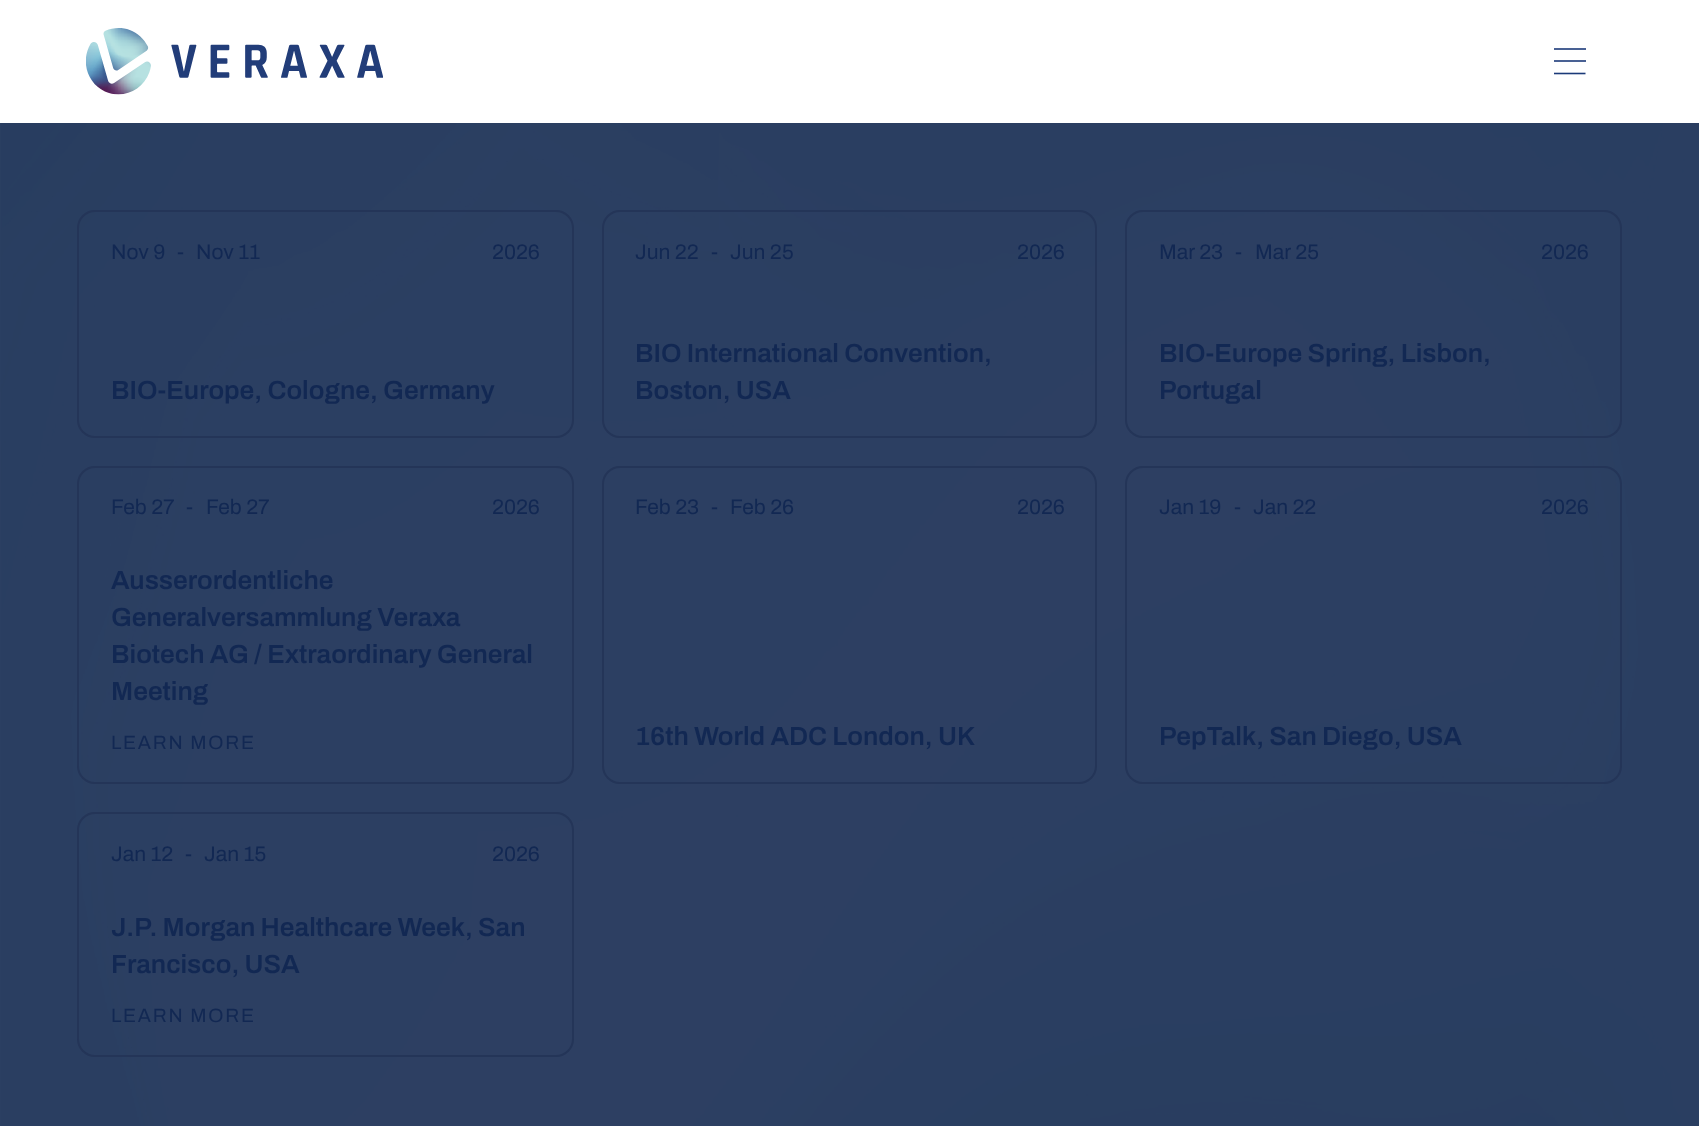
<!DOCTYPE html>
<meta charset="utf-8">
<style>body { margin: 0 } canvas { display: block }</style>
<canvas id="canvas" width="1699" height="1126"></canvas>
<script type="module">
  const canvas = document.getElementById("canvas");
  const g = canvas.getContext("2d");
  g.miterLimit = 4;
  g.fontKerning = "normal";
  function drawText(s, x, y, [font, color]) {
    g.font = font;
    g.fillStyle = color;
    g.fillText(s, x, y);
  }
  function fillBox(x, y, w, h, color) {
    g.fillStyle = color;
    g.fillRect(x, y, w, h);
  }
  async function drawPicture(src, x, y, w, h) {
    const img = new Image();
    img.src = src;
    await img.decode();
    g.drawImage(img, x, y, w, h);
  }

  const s1 = ["21px Archivo", "#122853"];
  const s2 = ["600 26.25px Archivo", "#122853"];
  const s3 = ["19.25px Archivo", "#122853"];

  fillBox(0, 0, 1699, 1126, "#FFFFFF");
  await drawPicture("pic1.png", 86, 28, 297, 67);
  fillBox(1554, 48, 32, 2, "#496194");
  fillBox(1554, 60, 32, 2, "#496194");
  g.beginPath();
  g.moveTo(1554, 73.5);
  g.lineTo(1585.5, 73.5);
  g.strokeStyle = "#1B3A79";
  g.lineWidth = 1.6;
  g.stroke();
  await drawPicture("pic2.png", 0, 123, 1699, 1003);
  g.beginPath();
  g.roundRect(78, 211, 495, 226, 17);
  g.strokeStyle = "#243558";
  g.lineWidth = 2;
  g.stroke();
  drawText("Nov 9", 111, 259, s1);
  drawText("-", 177, 259, s1);
  drawText("Nov 11", 196, 259, s1);
  drawText("2026", 492, 259, s1);
  drawText("BIO-Europe, Cologne, Germany", 111, 399, s2);
  g.beginPath();
  g.roundRect(603, 211, 493, 226, 17);
  g.stroke();
  drawText("Jun 22", 635, 259, s1);
  drawText("-", 711, 259, s1);
  drawText("Jun 25", 730, 259, s1);
  drawText("2026", 1017, 259, s1);
  drawText("BIO International Convention,", 635, 362, s2);
  drawText("Boston, USA", 635, 399, s2);
  g.beginPath();
  g.roundRect(1126, 211, 495, 226, 17);
  g.stroke();
  drawText("Mar 23", 1159, 259, s1);
  drawText("-", 1235, 259, s1);
  drawText("Mar 25", 1255, 259, s1);
  drawText("2026", 1541, 259, s1);
  drawText("BIO-Europe Spring, Lisbon,", 1159, 362, s2);
  drawText("Portugal", 1159, 399, s2);
  g.beginPath();
  g.roundRect(78, 467, 495, 316, 17);
  g.stroke();
  drawText("Feb 27", 111, 514, s1);
  drawText("-", 186, 514, s1);
  drawText("Feb 27", 206, 514, s1);
  drawText("2026", 492, 514, s1);
  drawText("Ausserordentliche", 111, 589, s2);
  drawText("Generalversammlung Veraxa", 111, 626, s2);
  drawText("Biotech AG / Extraordinary General", 111, 663, s2);
  drawText("Meeting", 111, 700, s2);
  g.letterSpacing = "1.75px";
  drawText("LEARN MORE", 111, 749, s3);
  g.beginPath();
  g.roundRect(603, 467, 493, 316, 17);
  g.stroke();
  g.letterSpacing = "0px";
  drawText("Feb 23", 635, 514, s1);
  drawText("-", 711, 514, s1);
  drawText("Feb 26", 730, 514, s1);
  drawText("2026", 1017, 514, s1);
  drawText("16th World ADC London, UK", 635, 745, s2);
  g.beginPath();
  g.roundRect(1126, 467, 495, 316, 17);
  g.stroke();
  drawText("Jan 19", 1159, 514, s1);
  drawText("-", 1234, 514, s1);
  drawText("Jan 22", 1253, 514, s1);
  drawText("2026", 1541, 514, s1);
  drawText("PepTalk, San Diego, USA", 1159, 745, s2);
  g.beginPath();
  g.roundRect(78, 813, 495, 243, 17);
  g.stroke();
  drawText("Jan 12", 111, 861, s1);
  drawText("-", 185, 861, s1);
  drawText("Jan 15", 204, 861, s1);
  drawText("2026", 492, 861, s1);
  drawText("J.P. Morgan Healthcare Week, San", 111, 936, s2);
  drawText("Francisco, USA", 111, 973, s2);
  g.letterSpacing = "1.75px";
  drawText("LEARN MORE", 111, 1022, s3);
</script>
